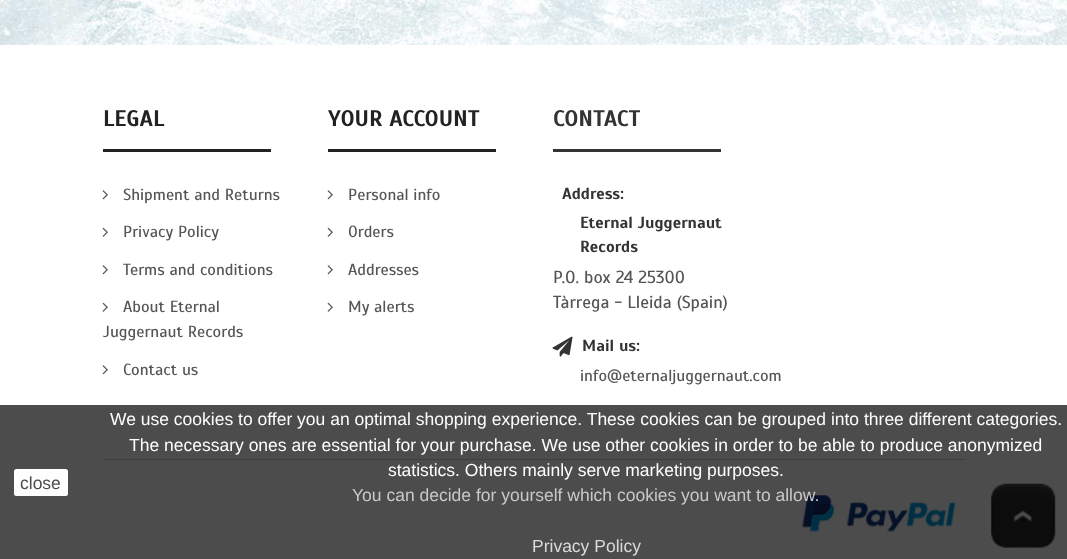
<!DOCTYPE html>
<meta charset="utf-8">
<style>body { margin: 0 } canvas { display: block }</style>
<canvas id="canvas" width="1067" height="559"></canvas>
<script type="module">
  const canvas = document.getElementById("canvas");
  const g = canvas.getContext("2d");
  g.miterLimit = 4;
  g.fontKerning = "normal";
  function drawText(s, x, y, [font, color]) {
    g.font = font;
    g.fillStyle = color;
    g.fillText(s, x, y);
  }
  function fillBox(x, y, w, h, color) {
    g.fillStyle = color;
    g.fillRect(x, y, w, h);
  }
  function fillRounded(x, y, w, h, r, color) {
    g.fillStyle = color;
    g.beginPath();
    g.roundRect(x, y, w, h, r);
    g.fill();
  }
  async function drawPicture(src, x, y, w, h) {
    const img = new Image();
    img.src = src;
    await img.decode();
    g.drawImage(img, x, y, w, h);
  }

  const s1 = ["bold 22.5px Scada", "#222222"];
  const s2 = ["16.25px Scada", "#555555"];
  const s3 = ["bold 22.5px Scada", "#333333"];
  const s4 = ["bold 16.25px Scada", "#333333"];
  const s5 = ["17.5px Scada", "#555555"];
  const s6 = ["17.5px Liberation Sans", "#4C4C4C"];
  const s7 = ["17.5px Liberation Sans", "#FEFEFE"];
  const s8 = ["17.5px Liberation Sans", "#C9C9C9"];
  const s9 = ["17.5px Liberation Sans", "#DBDBDB"];

  fillBox(0, 0, 1067, 559, "#FFFFFF");
  await drawPicture("pic1.png", 0, 0, 1067, 45);
  drawText("LEGAL", 103, 126, s1);
  fillBox(103, 149, 168, 3, "#222222");
  await drawPicture("pic2.png", 102, 190, 6, 10);
  drawText("Shipment and Returns", 123, 200, s2);
  await drawPicture("pic3.png", 102, 227, 6, 10);
  drawText("Privacy Policy", 123, 237, s2);
  await drawPicture("pic2.png", 102, 265, 6, 10);
  drawText("Terms and conditions", 123, 275, s2);
  await drawPicture("pic3.png", 102, 302, 6, 10);
  drawText("About Eternal", 123, 312, s2);
  drawText("Juggernaut Records", 103, 337, s2);
  await drawPicture("pic2.png", 102, 365, 6, 10);
  drawText("Contact us", 123, 375, s2);
  drawText("YOUR ACCOUNT", 328, 126, s1);
  fillBox(328, 149, 168, 3, "#222222");
  await drawPicture("pic2.png", 327, 190, 6, 10);
  drawText("Personal info", 348, 200, s2);
  await drawPicture("pic3.png", 327, 227, 6, 10);
  drawText("Orders", 348, 237, s2);
  await drawPicture("pic2.png", 327, 265, 6, 10);
  drawText("Addresses", 348, 275, s2);
  await drawPicture("pic3.png", 327, 302, 6, 10);
  drawText("My alerts", 348, 312, s2);
  drawText("CONTACT", 553, 126, s3);
  fillBox(553, 149, 168, 3, "#333333");
  drawText("Address:", 562, 199, s4);
  drawText("Eternal Juggernaut", 580, 228, s4);
  drawText("Records", 580, 252, s4);
  drawText("P.O. box 24 25300", 553, 283, s5);
  drawText("Tàrrega - Lleida (Spain)", 553, 308, s5);
  await drawPicture("pic4.png", 552, 336, 21, 21);
  drawText("Mail us:", 582, 351, s4);
  drawText("info@eternaljuggernaut.com", 580, 381, s2);
  fillBox(103, 459, 862, 1, "#D1D1D1");
  await drawPicture("pic5.png", 802, 495, 154, 37);
  await drawPicture("pic6.png", 991, 483, 65, 65);
  fillBox(0, 405, 1067, 154, "rgba(0, 0, 0, 0.7)");
  fillRounded(14, 469, 54, 27, 2.5, "#FEFEFE");
  drawText("close", 20, 489, s6);
  drawText("We use cookies to offer you an optimal shopping experience. These cookies can be grouped into three different categories.", 110, 425, s7);
  drawText("The necessary ones are essential for your purchase. We use other cookies in order to be able to produce anonymized", 129, 451, s7);
  drawText("statistics. Others mainly serve marketing purposes.", 388, 476, s7);
  drawText("You can decide for yourself which cookies you want to allow.", 352, 501, s8);
  drawText("Privacy Policy", 532, 552, s9);
</script>
